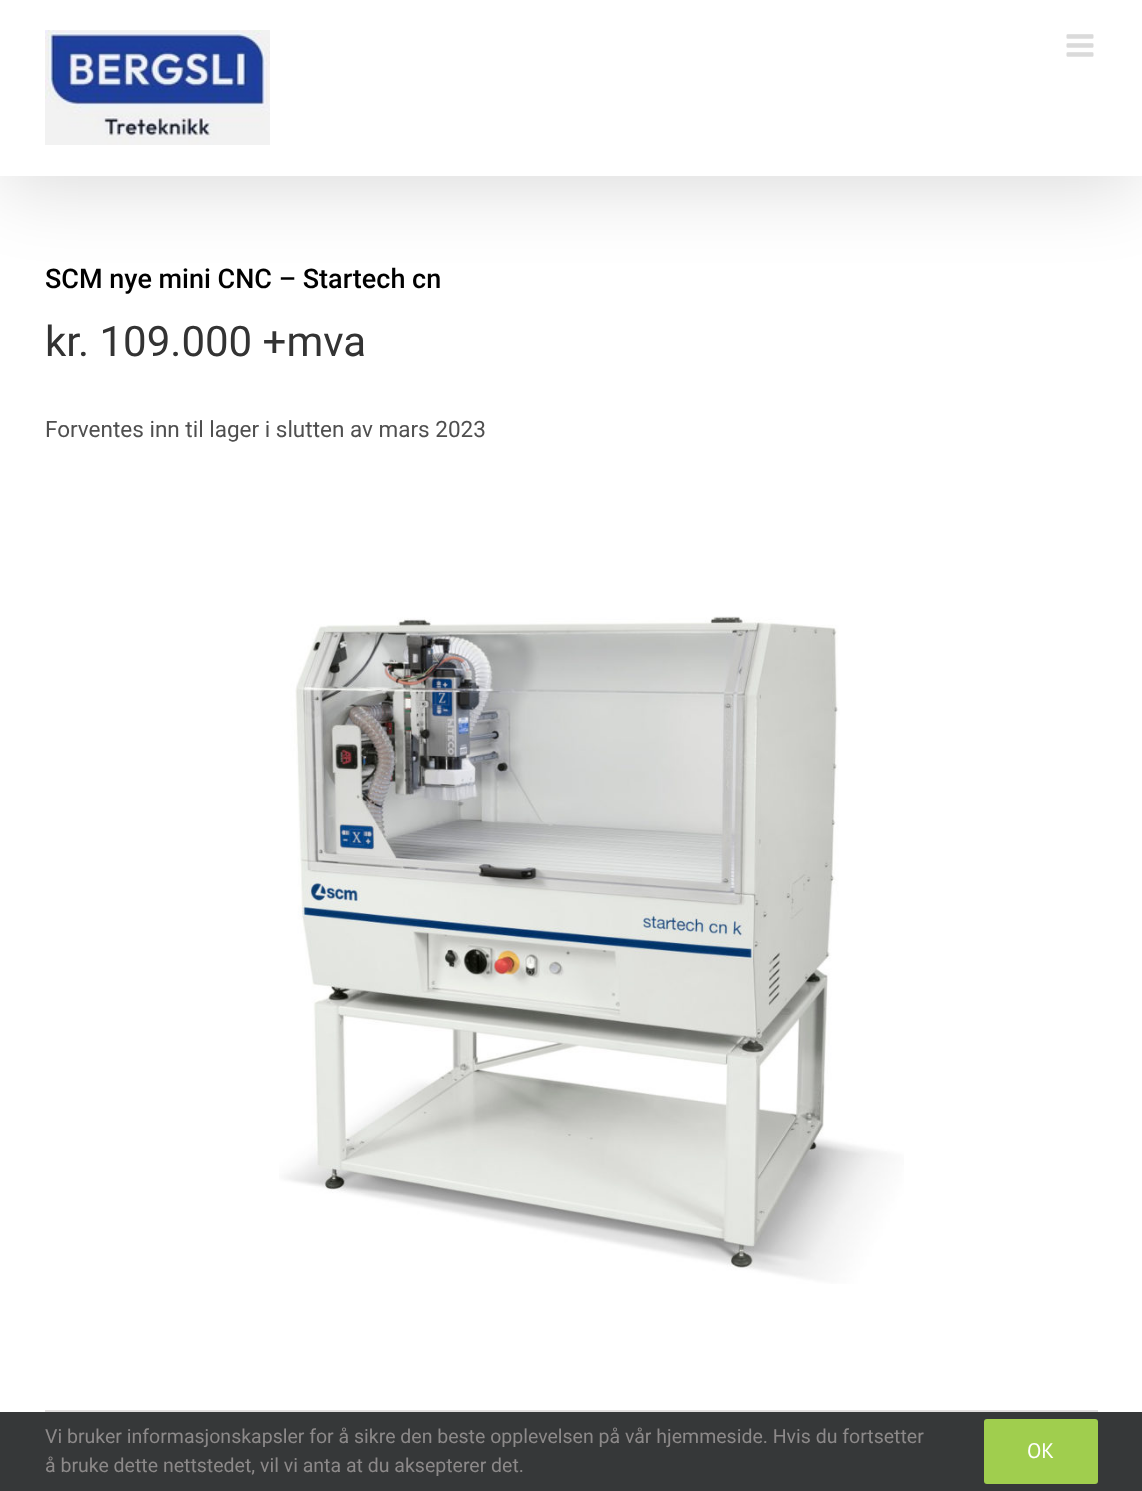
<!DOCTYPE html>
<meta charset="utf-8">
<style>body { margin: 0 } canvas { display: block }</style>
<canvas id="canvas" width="1142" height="1491"></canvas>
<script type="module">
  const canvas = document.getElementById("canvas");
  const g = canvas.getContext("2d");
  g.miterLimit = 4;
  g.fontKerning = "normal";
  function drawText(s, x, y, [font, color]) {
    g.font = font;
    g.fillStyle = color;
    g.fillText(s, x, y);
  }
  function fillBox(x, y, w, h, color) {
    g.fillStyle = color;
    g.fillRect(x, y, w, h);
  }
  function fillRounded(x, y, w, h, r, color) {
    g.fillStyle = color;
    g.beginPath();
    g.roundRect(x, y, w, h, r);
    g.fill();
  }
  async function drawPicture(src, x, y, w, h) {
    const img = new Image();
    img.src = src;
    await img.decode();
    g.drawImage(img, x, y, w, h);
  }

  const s1 = ["500 27px Roboto", "#000000"];
  const s2 = ["42px Roboto", "#333333"];
  const s3 = ["22.5px Roboto", "#4F4F4F"];
  const s4 = ["19.5px Roboto", "#8C8989"];
  const s5 = ["21px PT Sans", "#FFFFFF"];

  fillBox(0, 0, 1142, 1491, "#FFFFFF");
  g.fillStyle = "rgba(0, 0, 0, 0.14)";
  g.filter = "blur(37.5px)";
  g.beginPath();
  g.rect(3, 18, 1137, 170);
  g.fill();
  g.filter = "none";
  fillBox(0, 0, 1142, 176, "#FFFFFF");
  await drawPicture("pic1.png", 45, 30, 225, 115);
  await drawPicture("pic2.png", 1066, 34, 28, 23);
  drawText("SCM nye mini CNC – Startech cn", 45, 288, s1);
  drawText("kr. 109.000 +mva", 45, 356, s2);
  drawText("Forventes inn til lager i slutten av mars 2023", 45, 437, s3);
  await drawPicture("pic3.png", 279, 616, 625, 668);
  fillBox(45, 1410, 1053, 2, "#E0DEDE");
  fillBox(0, 1412, 1142, 79, "#363839");
  drawText("Vi bruker informasjonskapsler for å sikre den beste opplevelsen på vår hjemmeside. Hvis du fortsetter", 45, 1443, s4);
  drawText("å bruke dette nettstedet, vil vi anta at du aksepterer det.", 45, 1472, s4);
  fillRounded(984, 1419, 114, 65, 3, "#A0CE4E");
  drawText("OK", 1027, 1458, s5);
</script>
